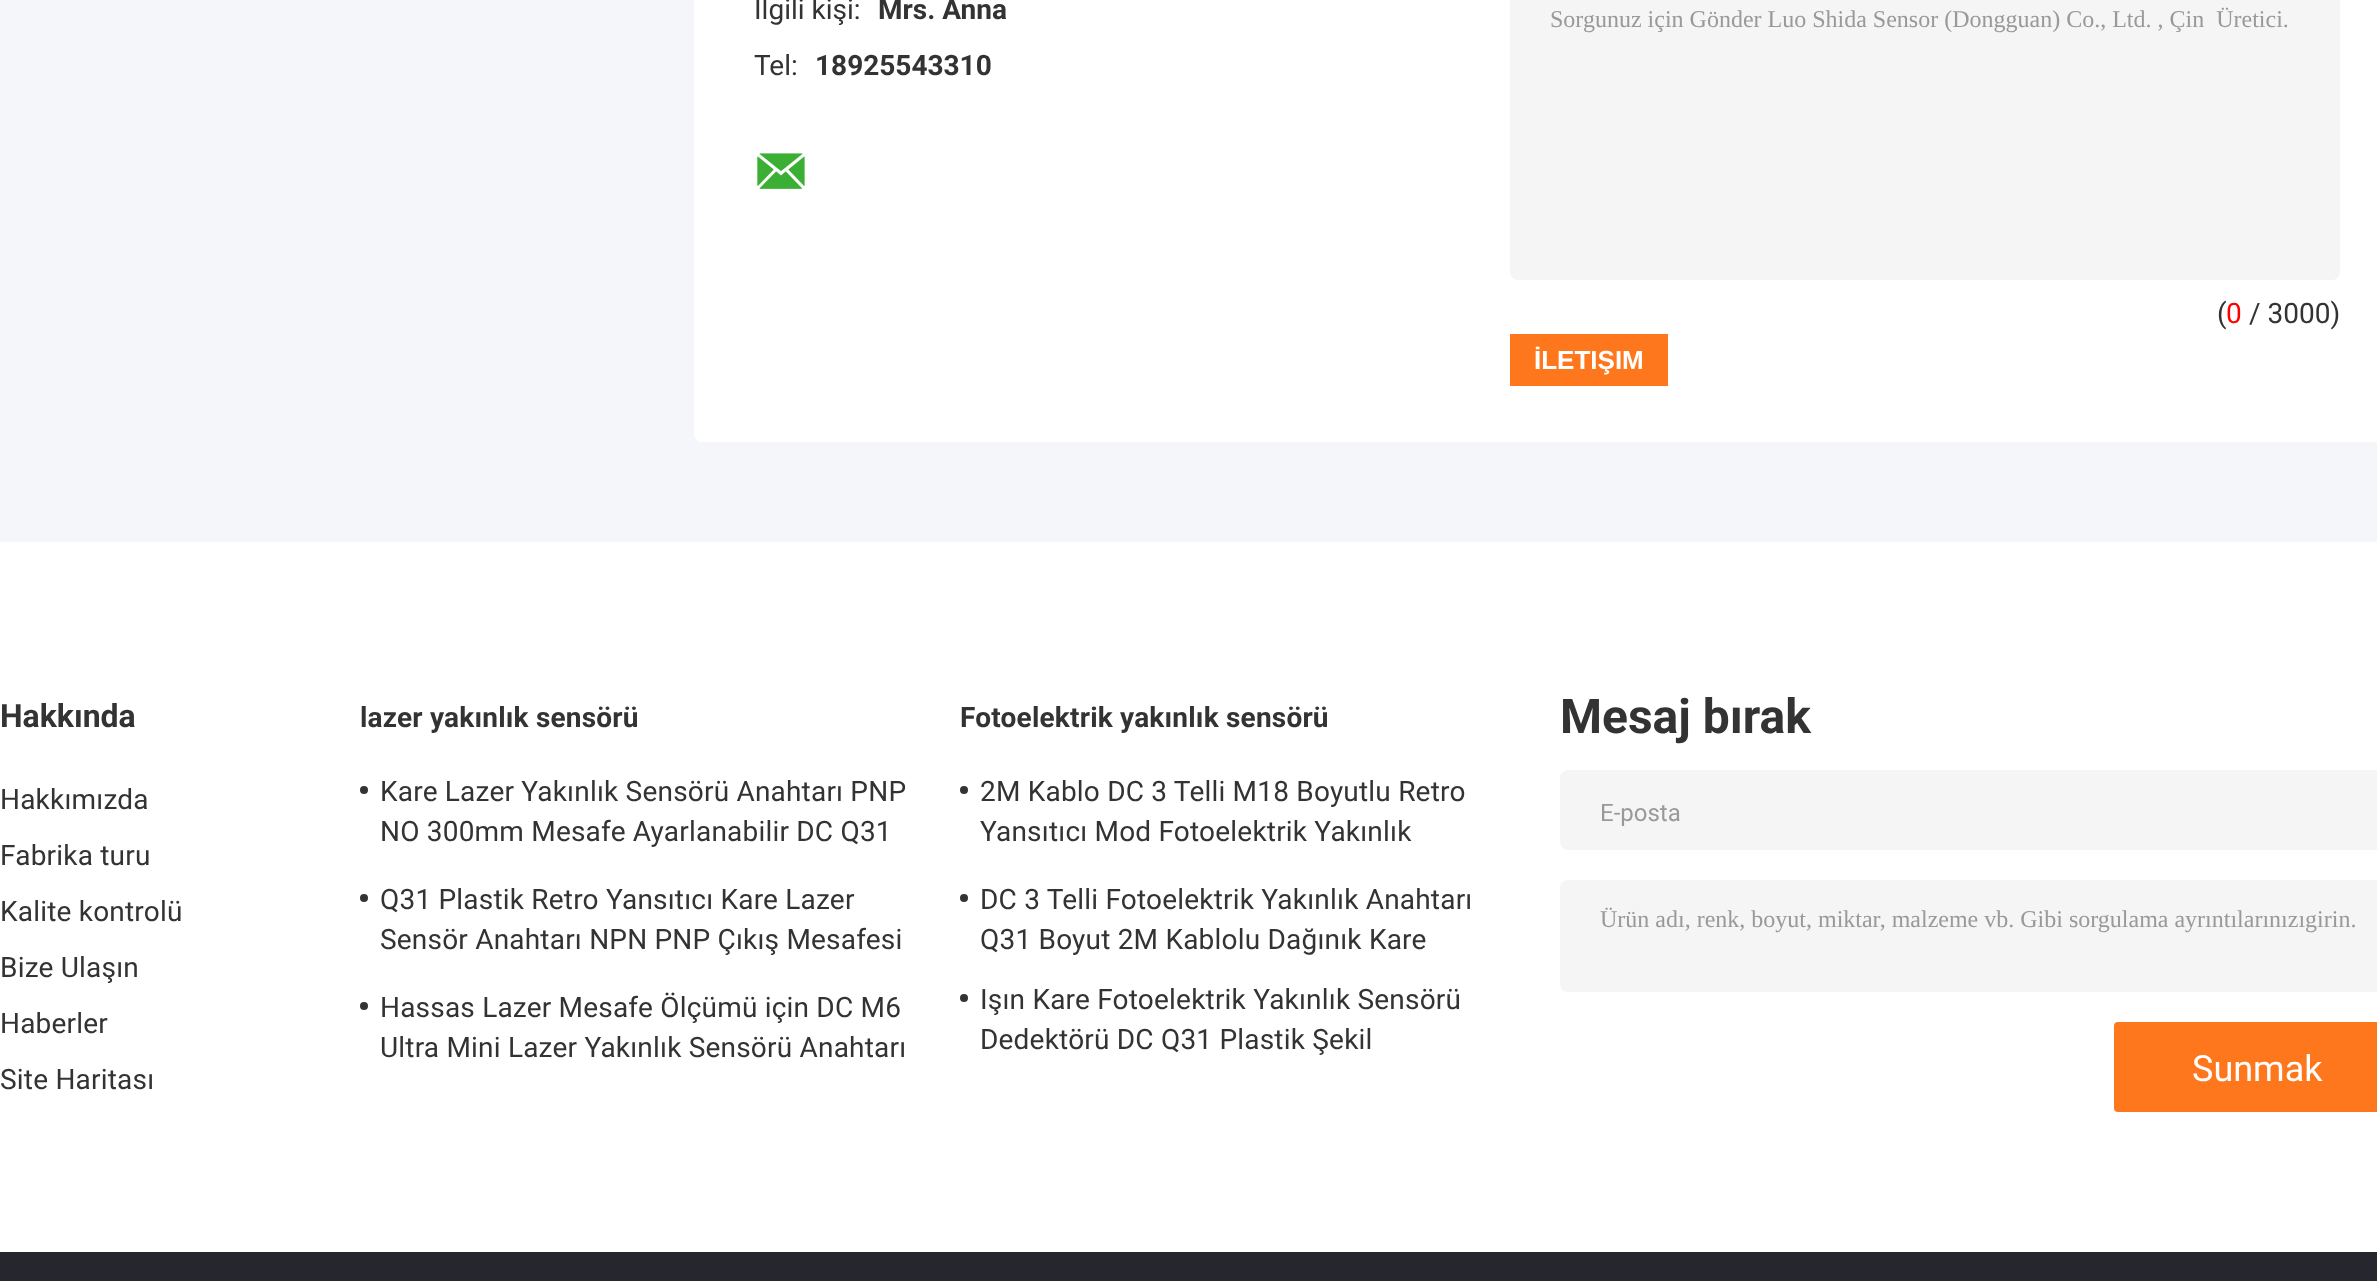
<!DOCTYPE html>
<meta charset="utf-8">
<style>body { margin: 0 } canvas { display: block }</style>
<canvas id="canvas" width="2377" height="1281"></canvas>
<script type="module">
  const canvas = document.getElementById("canvas");
  const g = canvas.getContext("2d");
  g.miterLimit = 4;
  g.fontKerning = "normal";
  function drawText(s, x, y, [font, color]) {
    g.font = font;
    g.fillStyle = color;
    g.fillText(s, x, y);
  }
  function fillBox(x, y, w, h, color) {
    g.fillStyle = color;
    g.fillRect(x, y, w, h);
  }
  function fillRounded(x, y, w, h, r, color) {
    g.fillStyle = color;
    g.beginPath();
    g.roundRect(x, y, w, h, r);
    g.fill();
  }
  async function drawPicture(src, x, y, w, h) {
    const img = new Image();
    img.src = src;
    await img.decode();
    g.drawImage(img, x, y, w, h);
  }

  const s1 = ["28px Roboto", "#333333"];
  const s2 = ["bold 28px Roboto", "#333333"];
  const s3 = ["24px Liberation Serif", "#999999"];
  const s4 = ["28px Roboto", "#FF0000"];
  const s5 = ["bold 26px Liberation Sans", "#FFFFFF"];
  const s6 = ["bold 32px Roboto", "#333333"];
  const s7 = ["bold 48px Roboto", "#333333"];
  const s8 = ["24px Roboto", "#999999"];
  const s9 = ["36px Roboto", "#FFFFFF"];

  fillBox(0, 0, 2377, 1281, "#F4F6F9");
  fillRounded(694, -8, 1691, 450, 8, "#FFFFFF");
  drawText("İlgili kişi:", 754, 19, s1);
  drawText("Mrs. Anna", 878, 19, s2);
  drawText("Tel:", 754, 75, s1);
  drawText("18925543310", 815, 75, s2);
  await drawPicture("pic1.png", 757, 153, 48, 36);
  fillRounded(1510, -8, 830, 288, 8, "#F5F5F5");
  drawText("Sorgunuz için Gönder Luo Shida Sensor (Dongguan) Co., Ltd. , Çin  Üretici.", 1550, 27, s3);
  drawText("(", 2217, 323, s1);
  drawText("0", 2226, 323, s4);
  drawText("/ 3000)", 2249, 323, s1);
  fillBox(1510, 334, 158, 52, "#FF771C");
  drawText("İLETIŞIM", 1534, 369, s5);
  fillBox(0, 542, 2377, 710, "#FFFFFF");
  drawText("Hakkında", 0, 727, s6);
  g.letterSpacing = "0.2px";
  drawText("Hakkımızda", 0, 809, s1);
  drawText("Fabrika turu", 0, 865, s1);
  drawText("Kalite kontrolü", 0, 921, s1);
  drawText("Bize Ulaşın", 0, 977, s1);
  drawText("Haberler", 0, 1033, s1);
  drawText("Site Haritası", 0, 1089, s1);
  drawText("lazer yakınlık sensörü", 360, 727, s2);
  g.beginPath();
  g.arc(364, 790, 4, 0, Math.PI * 2);
  g.fill();
  drawText("Kare Lazer Yakınlık Sensörü Anahtarı PNP", 380, 801, s1);
  drawText("NO 300mm Mesafe Ayarlanabilir DC Q31", 380, 841, s1);
  g.beginPath();
  g.arc(364, 898, 4, 0, Math.PI * 2);
  g.fill();
  drawText("Q31 Plastik Retro Yansıtıcı Kare Lazer", 380, 909, s1);
  drawText("Sensör Anahtarı NPN PNP Çıkış Mesafesi", 380, 949, s1);
  g.beginPath();
  g.arc(364, 1006, 4, 0, Math.PI * 2);
  g.fill();
  drawText("Hassas Lazer Mesafe Ölçümü için DC M6", 380, 1017, s1);
  drawText("Ultra Mini Lazer Yakınlık Sensörü Anahtarı", 380, 1057, s1);
  drawText("Fotoelektrik yakınlık sensörü", 960, 727, s2);
  g.beginPath();
  g.arc(964, 790, 4, 0, Math.PI * 2);
  g.fill();
  drawText("2M Kablo DC 3 Telli M18 Boyutlu Retro", 980, 801, s1);
  drawText("Yansıtıcı Mod Fotoelektrik Yakınlık", 980, 841, s1);
  g.beginPath();
  g.arc(964, 898, 4, 0, Math.PI * 2);
  g.fill();
  drawText("DC 3 Telli Fotoelektrik Yakınlık Anahtarı", 980, 909, s1);
  drawText("Q31 Boyut 2M Kablolu Dağınık Kare", 980, 949, s1);
  g.beginPath();
  g.arc(964, 998, 4, 0, Math.PI * 2);
  g.fill();
  drawText("Işın Kare Fotoelektrik Yakınlık Sensörü", 980, 1009, s1);
  drawText("Dedektörü DC Q31 Plastik Şekil", 980, 1049, s1);
  g.letterSpacing = "0px";
  drawText("Mesaj bırak", 1560, 733, s7);
  fillRounded(1560, 770, 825, 80, 8, "#F5F5F5");
  drawText("E-posta", 1600, 821, s8);
  fillRounded(1560, 880, 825, 112, 8, "#F5F5F5");
  drawText("Ürün adı, renk, boyut, miktar, malzeme vb. Gibi sorgulama ayrıntılarınızıgirin.", 1600, 927, s3);
  fillRounded(2114, 1022, 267, 90, 4, "#FF771C");
  drawText("Sunmak", 2192, 1081, s9);
  fillBox(0, 1252, 2377, 29, "#26262E");
</script>
